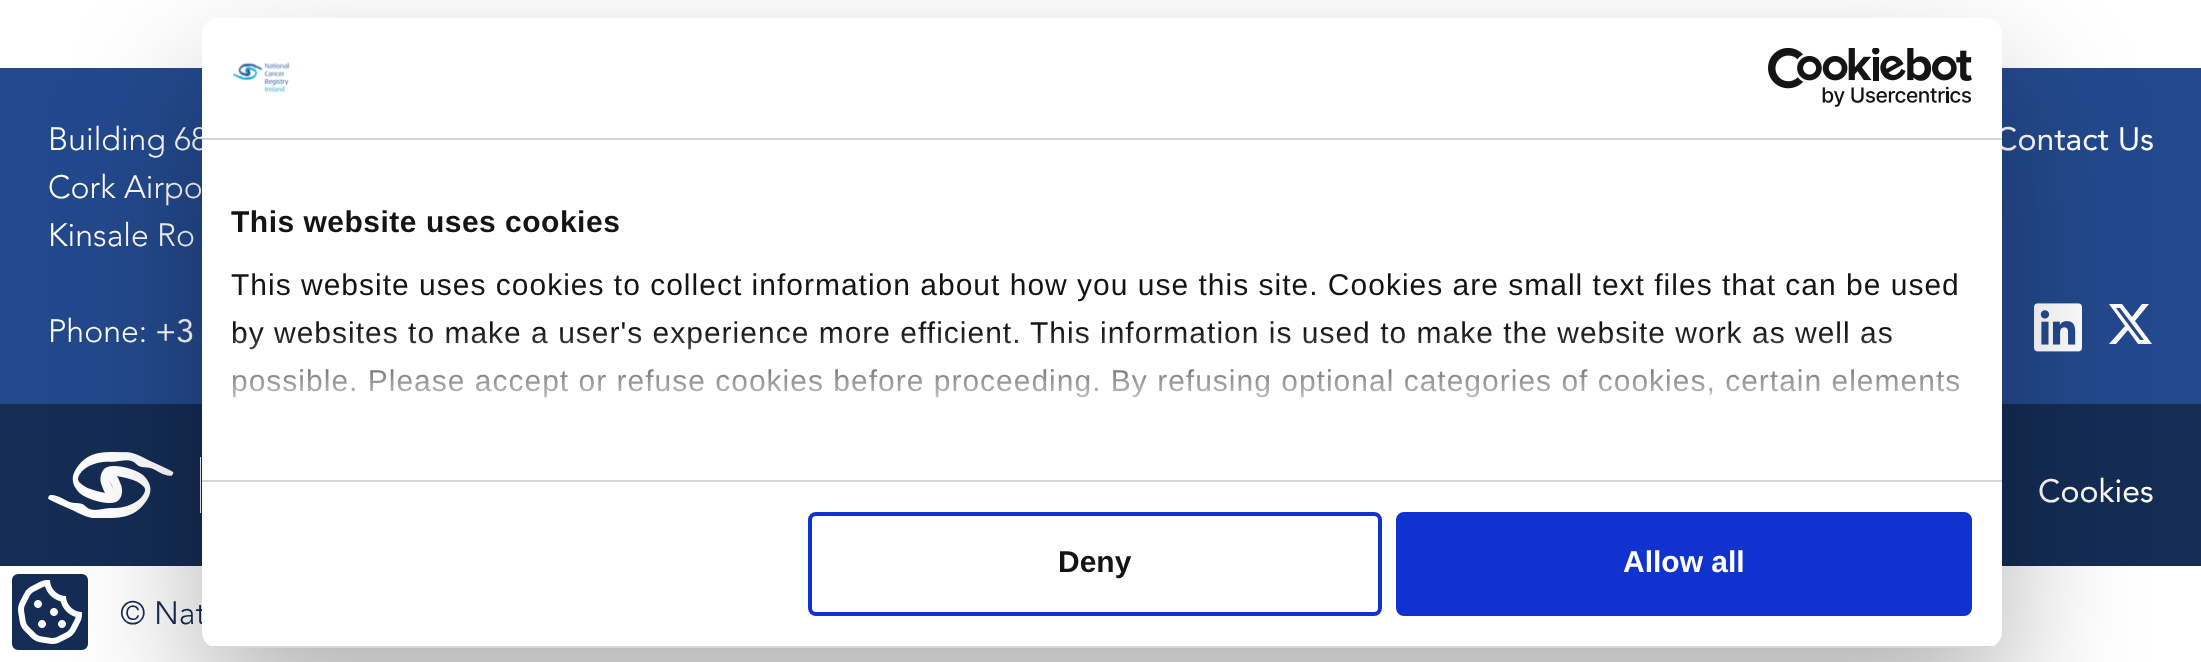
<!DOCTYPE html>
<meta charset="utf-8">
<style>body { margin: 0 } canvas { display: block }</style>
<canvas id="canvas" width="2201" height="662"></canvas>
<script type="module">
  const canvas = document.getElementById("canvas");
  const g = canvas.getContext("2d");
  g.miterLimit = 4;
  g.fontKerning = "normal";
  function drawText(s, x, y, [font, color]) {
    g.font = font;
    g.fillStyle = color;
    g.fillText(s, x, y);
  }
  function fillBox(x, y, w, h, color) {
    g.fillStyle = color;
    g.fillRect(x, y, w, h);
  }
  function fillRounded(x, y, w, h, r, color) {
    g.fillStyle = color;
    g.beginPath();
    g.roundRect(x, y, w, h, r);
    g.fill();
  }
  async function drawPicture(src, x, y, w, h) {
    const img = new Image();
    img.src = src;
    await img.decode();
    g.drawImage(img, x, y, w, h);
  }
  let gradient;

  const s1 = ["300 32px Avenir", "#FFFFFF"];
  const s2 = ["32px Avenir", "#FFFFFF"];
  const s3 = ["300 32px Avenir", "#152C55"];
  const s4 = ["bold 30px Liberation Sans", "#141414"];
  const s5 = ["30px Liberation Sans", "#141414"];
  const s6 = ["bold 30px Liberation Sans", "#FFFFFF"];

  fillBox(0, 0, 2201, 662, "#FFFFFF");
  fillBox(0, 68, 2201, 336, "#23498D");
  drawText("Building 68", 48, 150, s1);
  drawText("Cork Airpo", 48, 198, s1);
  drawText("Kinsale Ro", 48, 246, s1);
  drawText("Phone:", 48, 342, s1);
  drawText("+3", 155, 342, s2);
  drawText("Contact Us", 1995, 150, s2);
  await drawPicture("pic1.png", 2034, 303, 48, 49);
  g.beginPath();
  g.moveTo(2142, 304);
  g.lineTo(2149, 304);
  g.lineTo(2135, 321);
  g.lineTo(2152, 344);
  g.lineTo(2138, 344);
  g.lineTo(2128, 330);
  g.lineTo(2116, 344);
  g.lineTo(2109, 344);
  g.lineTo(2125, 326);
  g.lineTo(2109, 304);
  g.lineTo(2122, 304);
  g.lineTo(2132, 317);
  g.closePath();
  g.moveTo(2140, 340);
  g.lineTo(2144, 340);
  g.lineTo(2120, 308);
  g.lineTo(2116, 308);
  g.closePath();
  g.fill();
  fillBox(0, 404, 2201, 162, "#152C55");
  await drawPicture("pic2.png", 48, 452, 153, 66);
  drawText("Cookies", 2038, 502, s2);
  drawText("© Nat", 120, 624, s3);
  g.beginPath();
  g.roundRect(11, 573, 78, 78, 7);
  g.fill();
  g.strokeStyle = "#FFFFFF";
  g.lineWidth = 2;
  g.stroke();
  await drawPicture("pic5.png", 18, 580, 64, 64);
  g.fillStyle = "rgba(0, 0, 0, 0.3)";
  g.filter = "blur(68px)";
  g.beginPath();
  g.roundRect(202, 82, 1800, 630, 16);
  g.fill();
  g.filter = "none";
  fillRounded(202, 18, 1800, 630, 16, "#FFFFFF");
  fillBox(202, 138, 1800, 2, "#D6D6D6");
  await drawPicture("pic3.png", 233, 62, 57, 31);
  await drawPicture("pic4.png", 1768, 48, 204, 59);
  fillBox(202, 480, 1800, 2, "#D6D6D6");
  g.letterSpacing = "0.5px";
  drawText("This website uses cookies", 231, 232, s4);
  g.letterSpacing = "1px";
  drawText("This website uses cookies to collect information about how you use this site. Cookies are small text files that can be used", 231, 295, s5);
  drawText("by websites to make a user's experience more efficient.", 231, 343, s5);
  drawText("This information is used to make the website work as well as", 1030, 343, s5);
  drawText("possible. Please accept or refuse cookies before proceeding. By refusing optional categories of cookies, certain elements", 231, 391, s5);
  gradient = g.createLinearGradient(1089, 479, 1089, 329);
  gradient.addColorStop(0, "#FFFFFF");
  gradient.addColorStop(0.5, "rgba(255, 255, 255, 0.8)");
  gradient.addColorStop(1, "rgba(255, 255, 255, 0)");
  g.fillStyle = gradient;
  g.fillRect(232, 331, 1728, 67);
  g.save();
  g.beginPath();
  g.roundRect(202, 18, 1800, 630, 16);
  g.clip();
  fillBox(202, 646, 1800, 2, "#D6D6D6");
  g.restore();
  g.beginPath();
  g.roundRect(810, 514, 570, 100, 6);
  g.strokeStyle = "#1032CF";
  g.lineWidth = 4;
  g.stroke();
  g.letterSpacing = "0px";
  drawText("Deny", 1058, 572, s4);
  g.fillStyle = "#1032CF";
  g.beginPath();
  g.roundRect(1398, 514, 572, 100, 6);
  g.fill();
  g.stroke();
  drawText("Allow all", 1623, 572, s6);
</script>
